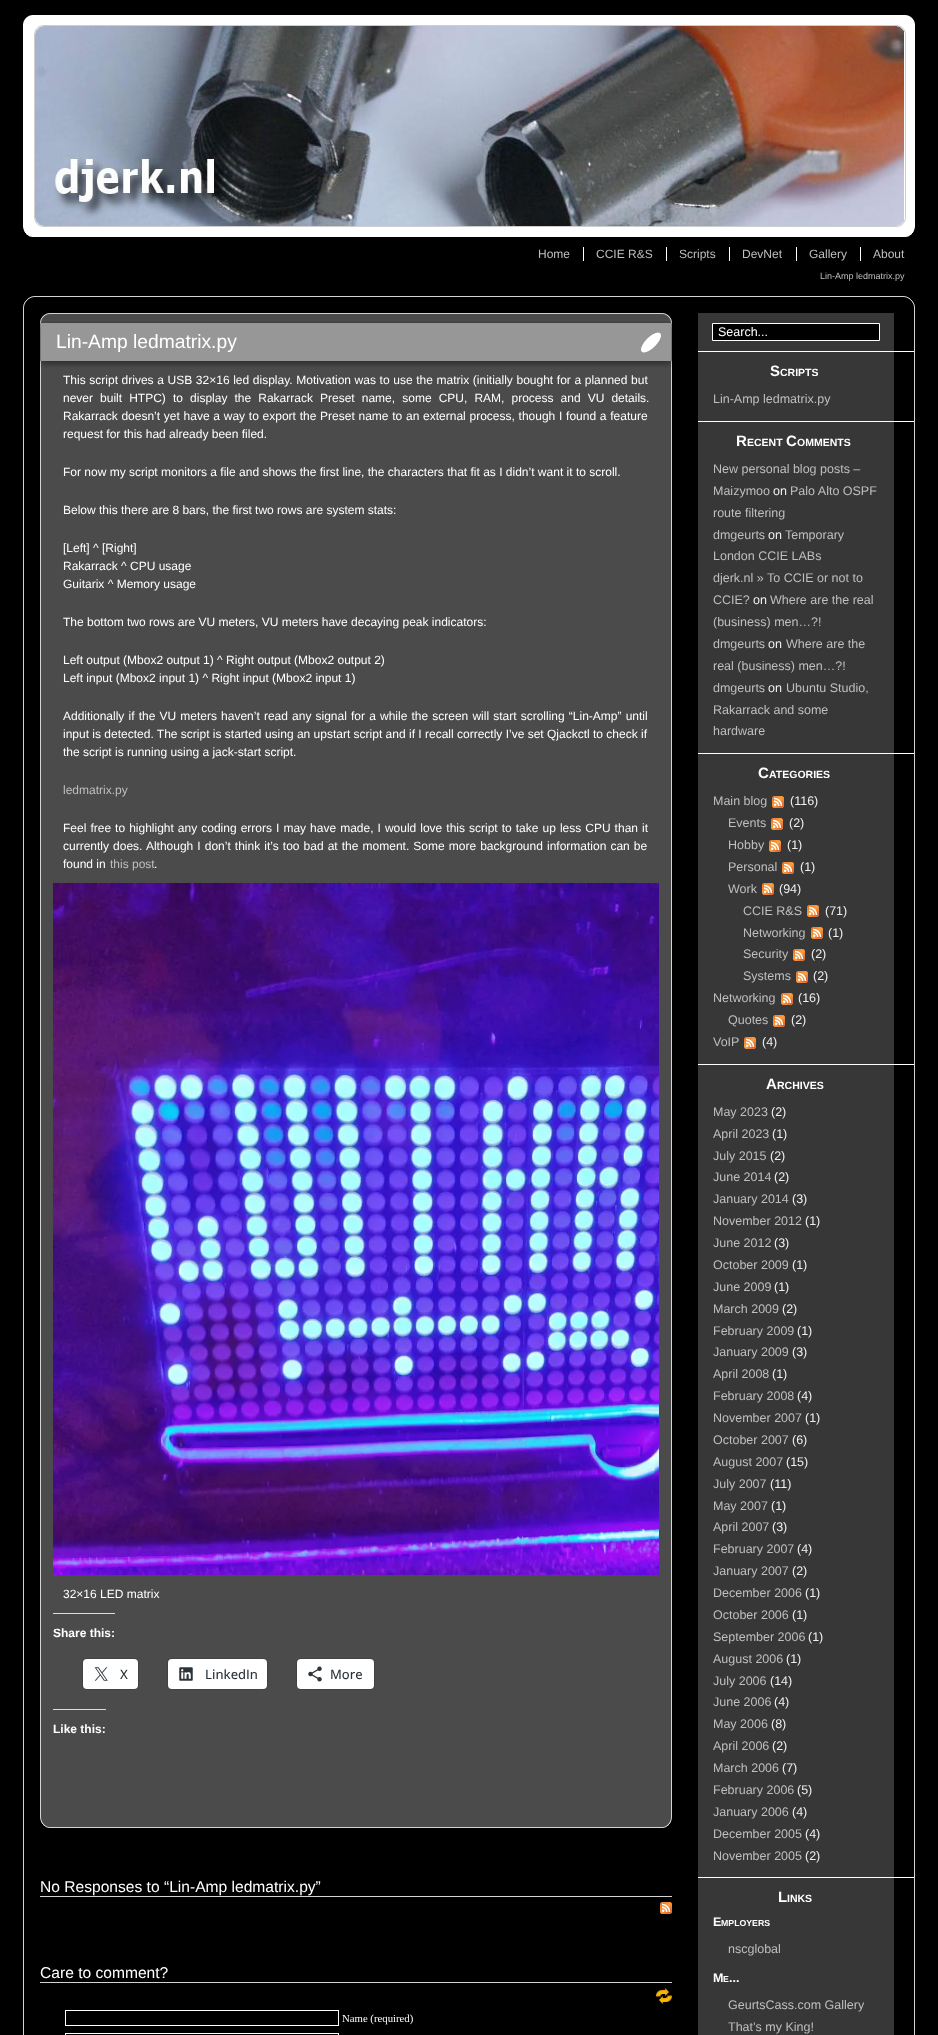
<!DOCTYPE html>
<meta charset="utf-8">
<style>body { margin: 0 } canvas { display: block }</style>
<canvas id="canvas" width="938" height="2035"></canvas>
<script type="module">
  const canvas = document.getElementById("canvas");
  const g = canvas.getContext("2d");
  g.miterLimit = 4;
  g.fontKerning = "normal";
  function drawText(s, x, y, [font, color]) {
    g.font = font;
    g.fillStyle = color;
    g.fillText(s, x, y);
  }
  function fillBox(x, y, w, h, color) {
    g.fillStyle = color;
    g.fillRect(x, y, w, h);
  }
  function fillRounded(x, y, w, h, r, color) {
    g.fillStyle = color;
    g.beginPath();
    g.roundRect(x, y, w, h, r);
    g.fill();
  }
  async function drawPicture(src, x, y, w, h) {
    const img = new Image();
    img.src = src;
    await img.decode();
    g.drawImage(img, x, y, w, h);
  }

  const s1 = ["12px Liberation Sans", "#BFBFBF"];
  const s2 = ["9px Liberation Sans", "#BFBFBF"];
  const s3 = ["19.25px Liberation Sans", "#FFFFFF"];
  const s4 = ["12px Liberation Sans", "#FFFFFF"];
  const s5 = ["bold 12px Liberation Sans", "#FFFFFF"];
  const s6 = ["500 13px Open Sans", "#2C3338"];
  const s7 = ["15.6px Liberation Sans", "#FFFFFF"];
  const s8 = ["10.75px Liberation Serif", "#FFFFFF"];
  const s9 = ["12.5px Liberation Sans", "#FFFFFF"];
  const s10 = ["bold 15px Liberation Sans", "#FFFFFF"];
  const s11 = ["bold 10.5px Liberation Sans", "#FFFFFF"];
  const s12 = ["12.5px Liberation Sans", "#BFBFBF"];
  const s13 = ["12.5px Liberation Sans", "#EFEFEF"];
  const s14 = ["bold 12.5px Liberation Sans", "#FFFFFF"];
  const s15 = ["bold 8.75px Liberation Sans", "#FFFFFF"];

  fillBox(0, 0, 938, 2035, "#000000");
  await drawPicture("pic1.png", 23, 15, 10, 10);
  fillBox(33, 15, 872, 10, "#FFFFFF");
  await drawPicture("pic2.png", 905, 15, 10, 10);
  fillBox(914, 25, 1, 202, "#FFFFFF");
  fillBox(23, 25, 891, 202, "#FFFFFF");
  g.strokeStyle = "#CDCDCD";
  g.strokeRect(34.5, 25.5, 871, 201);
  await drawPicture("pic5.png", 35, 26, 869, 200);
  await drawPicture("pic3.png", 34, 25, 9, 9);
  await drawPicture("pic4.png", 897, 25, 9, 9);
  await drawPicture("pic6.png", 34, 218, 9, 9);
  await drawPicture("pic7.png", 897, 218, 9, 9);
  await drawPicture("pic8.png", 23, 227, 10, 10);
  fillBox(33, 227, 872, 10, "#FFFFFF");
  await drawPicture("pic9.png", 905, 227, 10, 10);
  drawText("Home", 538, 258, s1);
  drawText("CCIE R&S", 596, 258, s1);
  fillBox(583, 247, 1, 14, "#FFFFFF");
  drawText("Scripts", 679, 258, s1);
  fillBox(666, 247, 1, 14, "#FFFFFF");
  drawText("DevNet", 742, 258, s1);
  fillBox(729, 247, 1, 14, "#FFFFFF");
  drawText("Gallery", 809, 258, s1);
  fillBox(796, 247, 1, 14, "#FFFFFF");
  drawText("About", 873, 258, s1);
  fillBox(860, 247, 1, 14, "#FFFFFF");
  drawText("Lin-Amp ledmatrix.py", 820, 279, s2);
  await drawPicture("pic10.png", 23, 296, 12, 12);
  fillBox(35, 296, 868, 1, "#D3D3D3");
  await drawPicture("pic11.png", 903, 296, 12, 12);
  fillBox(914, 308, 1, 1727, "#D3D3D3");
  fillBox(23, 308, 1, 1727, "#D3D3D3");
  await drawPicture("pic12.png", 40, 313, 10, 10);
  fillBox(50, 314, 612, 9, "#4B4B4B");
  fillBox(50, 313, 612, 1, "#D3D3D3");
  await drawPicture("pic13.png", 662, 313, 10, 10);
  fillBox(41, 361, 630, 1457, "#4B4B4B");
  fillBox(671, 361, 1, 1457, "#D3D3D3");
  fillBox(40, 361, 1, 1457, "#D3D3D3");
  await drawPicture("pic14.png", 40, 321, 9, 2);
  await drawPicture("pic15.png", 49, 321, 614, 2);
  await drawPicture("pic16.png", 663, 321, 9, 2);
  fillBox(40, 323, 632, 38, "#979797");
  await drawPicture("pic17.png", 40, 323, 1, 8);
  await drawPicture("pic17.png", 671, 323, 1, 8);
  fillBox(40, 331, 1, 22, "#767676");
  fillBox(671, 331, 1, 22, "#767676");
  await drawPicture("pic18.png", 40, 353, 1, 8);
  await drawPicture("pic18.png", 671, 353, 1, 8);
  await drawPicture("pic19.png", 40, 361, 9, 7);
  await drawPicture("pic20.png", 49, 361, 614, 6);
  await drawPicture("pic21.png", 663, 361, 9, 7);
  drawText("Lin-Amp ledmatrix.py", 56, 348, s3);
  await drawPicture("pic22.png", 641, 332, 20, 21);
  g.wordSpacing = "0.3px";
  drawText("This script drives a USB 32×16 led display. Motivation was to use the matrix (initially bought for a planned but", 63, 384, s4);
  g.wordSpacing = "3.75px";
  drawText("never built HTPC) to display the Rakarrack Preset name, some CPU, RAM, process and VU details.", 63, 402, s4);
  g.wordSpacing = "0.4px";
  drawText("Rakarrack doesn’t yet have a way to export the Preset name to an external process, though I found a feature", 63, 420, s4);
  g.wordSpacing = "0px";
  drawText("request for this had already been filed.", 63, 438, s4);
  drawText("For now my script monitors a file and shows the first line, the characters that fit as I didn’t want it to scroll.", 63, 476, s4);
  drawText("Below this there are 8 bars, the first two rows are system stats:", 63, 514, s4);
  drawText("[Left] ^ [Right]", 63, 552, s4);
  drawText("Rakarrack ^ CPU usage", 63, 570, s4);
  drawText("Guitarix ^ Memory usage", 63, 588, s4);
  drawText("The bottom two rows are VU meters, VU meters have decaying peak indicators:", 63, 626, s4);
  drawText("Left output (Mbox2 output 1) ^ Right output (Mbox2 output 2)", 63, 664, s4);
  drawText("Left input (Mbox2 input 1) ^ Right input (Mbox2 input 1)", 63, 682, s4);
  g.wordSpacing = "0.8px";
  drawText("Additionally if the VU meters haven’t read any signal for a while the screen will start scrolling “Lin-Amp” until", 63, 720, s4);
  g.wordSpacing = "0px";
  drawText("input is detected. The script is started using an upstart script and if I recall correctly I’ve set Qjackctl to check if", 63, 738, s4);
  drawText("the script is running using a jack-start script.", 63, 756, s4);
  drawText("ledmatrix.py", 63, 794, s1);
  g.wordSpacing = "0.7px";
  drawText("Feel free to highlight any coding errors I may have made, I would love this script to take up less CPU than it", 63, 832, s4);
  g.wordSpacing = "0.75px";
  drawText("currently does. Although I don’t think it’s too bad at the moment. Some more background information can be", 63, 850, s4);
  g.wordSpacing = "0px";
  drawText("found in", 63, 868, s4);
  drawText("this post", 110, 868, s1);
  drawText(".", 154, 868, s4);
  await drawPicture("pic23.png", 53, 883, 606, 692);
  drawText("32×16 LED matrix", 63, 1598, s4);
  fillBox(53, 1613, 62, 1, "#DCDCDE");
  drawText("Share this:", 53, 1637, s5);
  g.beginPath();
  g.roundRect(82.5, 1658.5, 56, 31, 4.5);
  g.strokeStyle = "#424242";
  g.stroke();
  fillRounded(83, 1659, 55, 30, 4, "#FFFFFF");
  await drawPicture("pic24.png", 94, 1667, 14, 14);
  drawText("X", 120, 1679, s6);
  g.beginPath();
  g.roundRect(167.5, 1658.5, 100, 31, 4.5);
  g.stroke();
  fillRounded(168, 1659, 99, 30, 4, "#FFFFFF");
  await drawPicture("pic25.png", 179, 1667, 14, 14);
  drawText("LinkedIn", 205, 1679, s6);
  g.beginPath();
  g.roundRect(296.5, 1658.5, 78, 31, 4.5);
  g.stroke();
  fillRounded(297, 1659, 77, 30, 4, "#FFFFFF");
  await drawPicture("pic26.png", 308, 1666, 14, 16);
  drawText("More", 330, 1679, s6);
  fillBox(53, 1709, 53, 1, "#DCDCDE");
  drawText("Like this:", 53, 1733, s5);
  await drawPicture("pic27.png", 40, 1818, 10, 10);
  fillBox(50, 1818, 612, 9, "#4B4B4B");
  fillBox(50, 1827, 612, 1, "#D3D3D3");
  await drawPicture("pic28.png", 662, 1818, 10, 10);
  fillBox(40, 1896, 632, 1, "#D3D3D3");
  drawText("No Responses to “Lin-Amp ledmatrix.py”", 40, 1892, s7);
  await drawPicture("pic29.png", 660, 1902, 12, 12);
  fillBox(40, 1982, 632, 1, "#D3D3D3");
  drawText("Care to comment?", 40, 1978, s7);
  await drawPicture("pic30.png", 656, 1988, 16, 16);
  g.strokeStyle = "#FFFFFF";
  g.strokeRect(65.5, 2010.5, 273, 15);
  drawText("Name (required)", 342, 2022, s8);
  g.strokeRect(65.5, 2033.5, 273, 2);
  fillBox(698, 313, 196, 38, "#373737");
  g.fillStyle = "#000000";
  g.beginPath();
  g.rect(712.5, 323.5, 167, 17);
  g.fill();
  g.stroke();
  drawText("Search...", 718, 336, s9);
  fillBox(698, 351, 216, 1, "#FFFFFF");
  fillBox(698, 352, 196, 69, "#373737");
  drawText("S", 770, 376, s10);
  drawText("CRIPTS", 780, 376, s11);
  drawText("Lin-Amp ledmatrix.py", 713, 403, s12);
  fillBox(698, 421, 216, 1, "#FFFFFF");
  fillBox(698, 422, 196, 331, "#373737");
  drawText("R", 736, 446, s10);
  drawText("ECENT", 747, 446, s11);
  drawText("C", 786, 446, s10);
  drawText("OMMENTS", 797, 446, s11);
  drawText("New personal blog posts –", 713, 473, s12);
  drawText("Maizymoo", 713, 495, s12);
  drawText("on", 773, 495, s13);
  drawText("Palo Alto OSPF", 790, 495, s12);
  drawText("route filtering", 713, 517, s12);
  drawText("dmgeurts", 713, 539, s12);
  drawText("on", 768, 539, s13);
  drawText("Temporary", 785, 539, s12);
  drawText("London CCIE LABs", 713, 560, s12);
  drawText("djerk.nl » To CCIE or not to", 713, 582, s12);
  drawText("CCIE?", 713, 604, s12);
  drawText("on", 753, 604, s13);
  drawText("Where are the real", 770, 604, s12);
  drawText("(business) men…?!", 713, 626, s12);
  drawText("dmgeurts", 713, 648, s12);
  drawText("on", 768, 648, s13);
  drawText("Where are the", 786, 648, s12);
  drawText("real (business) men…?!", 713, 670, s12);
  drawText("dmgeurts", 713, 692, s12);
  drawText("on", 768, 692, s13);
  drawText("Ubuntu Studio,", 786, 692, s12);
  drawText("Rakarrack and some", 713, 714, s12);
  drawText("hardware", 713, 735, s12);
  fillBox(698, 753, 216, 1, "#FFFFFF");
  fillBox(698, 754, 196, 310, "#373737");
  drawText("C", 758, 778, s10);
  drawText("ATEGORIES", 769, 778, s11);
  drawText("Main blog", 713, 805, s12);
  await drawPicture("pic31.png", 772, 796, 12, 12);
  drawText("(116)", 790, 805, s13);
  drawText("Events", 728, 827, s12);
  await drawPicture("pic31.png", 771, 818, 12, 12);
  drawText("(2)", 789, 827, s13);
  drawText("Hobby", 728, 849, s12);
  await drawPicture("pic31.png", 769, 840, 12, 12);
  drawText("(1)", 787, 849, s13);
  drawText("Personal", 728, 871, s12);
  await drawPicture("pic31.png", 782, 862, 12, 12);
  drawText("(1)", 800, 871, s13);
  drawText("Work", 728, 893, s12);
  await drawPicture("pic31.png", 762, 883, 12, 12);
  drawText("(94)", 779, 893, s13);
  drawText("CCIE R&S", 743, 915, s12);
  await drawPicture("pic31.png", 807, 905, 12, 12);
  drawText("(71)", 825, 915, s13);
  drawText("Networking", 743, 937, s12);
  await drawPicture("pic31.png", 811, 927, 12, 12);
  drawText("(1)", 828, 937, s13);
  drawText("Security", 743, 958, s12);
  await drawPicture("pic31.png", 793, 949, 12, 12);
  drawText("(2)", 811, 958, s13);
  drawText("Systems", 743, 980, s12);
  await drawPicture("pic31.png", 796, 971, 12, 12);
  drawText("(2)", 813, 980, s13);
  drawText("Networking", 713, 1002, s12);
  await drawPicture("pic31.png", 781, 993, 12, 12);
  drawText("(16)", 798, 1002, s13);
  drawText("Quotes", 728, 1024, s12);
  await drawPicture("pic31.png", 773, 1015, 12, 12);
  drawText("(2)", 791, 1024, s13);
  drawText("VoIP", 713, 1046, s12);
  await drawPicture("pic31.png", 744, 1037, 12, 12);
  drawText("(4)", 762, 1046, s13);
  fillBox(698, 1064, 216, 1, "#FFFFFF");
  fillBox(698, 1065, 196, 812, "#373737");
  drawText("A", 766, 1089, s10);
  drawText("RCHIVES", 777, 1089, s11);
  drawText("May 2023", 713, 1116, s12);
  drawText("(2)", 771, 1116, s13);
  drawText("April 2023", 713, 1138, s12);
  drawText("(1)", 772, 1138, s13);
  drawText("July 2015", 713, 1160, s12);
  drawText("(2)", 770, 1160, s13);
  drawText("June 2014", 713, 1181, s12);
  drawText("(2)", 774, 1181, s13);
  drawText("January 2014", 713, 1203, s12);
  drawText("(3)", 792, 1203, s13);
  drawText("November 2012", 713, 1225, s12);
  drawText("(1)", 805, 1225, s13);
  drawText("June 2012", 713, 1247, s12);
  drawText("(3)", 774, 1247, s13);
  drawText("October 2009", 713, 1269, s12);
  drawText("(1)", 792, 1269, s13);
  drawText("June 2009", 713, 1291, s12);
  drawText("(1)", 774, 1291, s13);
  drawText("March 2009", 713, 1313, s12);
  drawText("(2)", 782, 1313, s13);
  drawText("February 2009", 713, 1335, s12);
  drawText("(1)", 797, 1335, s13);
  drawText("January 2009", 713, 1356, s12);
  drawText("(3)", 792, 1356, s13);
  drawText("April 2008", 713, 1378, s12);
  drawText("(1)", 772, 1378, s13);
  drawText("February 2008", 713, 1400, s12);
  drawText("(4)", 797, 1400, s13);
  drawText("November 2007", 713, 1422, s12);
  drawText("(1)", 805, 1422, s13);
  drawText("October 2007", 713, 1444, s12);
  drawText("(6)", 792, 1444, s13);
  drawText("August 2007", 713, 1466, s12);
  drawText("(15)", 786, 1466, s13);
  drawText("July 2007", 713, 1488, s12);
  drawText("(11)", 770, 1488, s13);
  drawText("May 2007", 713, 1510, s12);
  drawText("(1)", 771, 1510, s13);
  drawText("April 2007", 713, 1531, s12);
  drawText("(3)", 772, 1531, s13);
  drawText("February 2007", 713, 1553, s12);
  drawText("(4)", 797, 1553, s13);
  drawText("January 2007", 713, 1575, s12);
  drawText("(2)", 792, 1575, s13);
  drawText("December 2006", 713, 1597, s12);
  drawText("(1)", 805, 1597, s13);
  drawText("October 2006", 713, 1619, s12);
  drawText("(1)", 792, 1619, s13);
  drawText("September 2006", 713, 1641, s12);
  drawText("(1)", 808, 1641, s13);
  drawText("August 2006", 713, 1663, s12);
  drawText("(1)", 786, 1663, s13);
  drawText("July 2006", 713, 1685, s12);
  drawText("(14)", 770, 1685, s13);
  drawText("June 2006", 713, 1706, s12);
  drawText("(4)", 774, 1706, s13);
  drawText("May 2006", 713, 1728, s12);
  drawText("(8)", 771, 1728, s13);
  drawText("April 2006", 713, 1750, s12);
  drawText("(2)", 772, 1750, s13);
  drawText("March 2006", 713, 1772, s12);
  drawText("(7)", 782, 1772, s13);
  drawText("February 2006", 713, 1794, s12);
  drawText("(5)", 797, 1794, s13);
  drawText("January 2006", 713, 1816, s12);
  drawText("(4)", 792, 1816, s13);
  drawText("December 2005", 713, 1838, s12);
  drawText("(4)", 805, 1838, s13);
  drawText("November 2005", 713, 1860, s12);
  drawText("(2)", 805, 1860, s13);
  fillBox(698, 1877, 216, 1, "#FFFFFF");
  fillBox(698, 1878, 196, 157, "#373737");
  drawText("L", 778, 1902, s10);
  drawText("INKS", 787, 1902, s11);
  drawText("E", 713, 1926, s14);
  drawText("MPLOYERS", 721, 1926, s15);
  drawText("nscglobal", 728, 1953, s12);
  drawText("M", 713, 1982, s14);
  drawText("E", 723, 1982, s15);
  drawText("...", 729, 1982, s14);
  drawText("GeurtsCass.com Gallery", 728, 2009, s12);
  drawText("That’s my King!", 728, 2031, s12);
</script>
